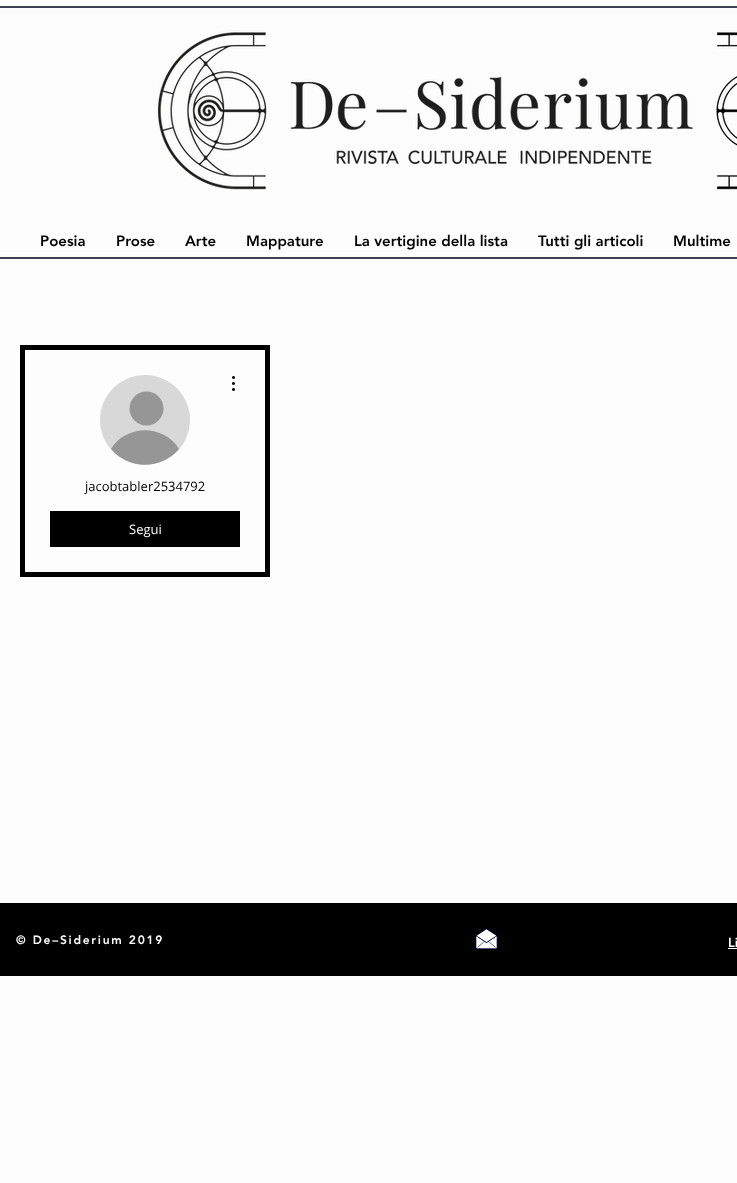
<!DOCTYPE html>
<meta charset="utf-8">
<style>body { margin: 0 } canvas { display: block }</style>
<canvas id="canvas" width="737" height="1183"></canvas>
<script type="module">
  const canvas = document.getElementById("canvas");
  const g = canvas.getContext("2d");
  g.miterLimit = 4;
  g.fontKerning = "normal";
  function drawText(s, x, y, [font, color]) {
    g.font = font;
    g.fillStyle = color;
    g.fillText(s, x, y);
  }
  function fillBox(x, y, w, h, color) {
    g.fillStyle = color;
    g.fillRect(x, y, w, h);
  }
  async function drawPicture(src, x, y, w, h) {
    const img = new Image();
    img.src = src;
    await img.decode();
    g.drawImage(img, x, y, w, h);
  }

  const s1 = ["900 15px 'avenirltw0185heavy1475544'", "#000000"];
  const s2 = ["13px Open Sans", "#000000"];
  const s3 = ["13px Open Sans", "#FFFFFF"];
  const s4 = ["900 12px 'avenirltw0185heavy1475544'", "#FFFFFF"];
  const s5 = ["900 13px 'avenirltw0185heavy1475544'", "#FFFFFF"];

  fillBox(0, 0, 737, 1183, "#FDFDFD");
  fillBox(0, 6, 737, 2, "#3D4152");
  fillBox(0, 257, 737, 2, "#3D4152");
  fillBox(0, 13, 737, 1, "#FAFAFA");
  fillBox(0, 251, 737, 1, "#FAFAFA");
  await drawPicture("pic1.png", 157, 30, 580, 160);
  drawText("Poesia", 40, 246, s1);
  drawText("Prose", 116, 246, s1);
  drawText("Arte", 185, 246, s1);
  drawText("Mappature", 246, 246, s1);
  drawText("La vertigine della lista", 354, 246, s1);
  drawText("Tutti gli articoli", 538, 246, s1);
  drawText("Multime", 673, 246, s1);
  g.strokeStyle = "#000000";
  g.lineWidth = 5;
  g.strokeRect(22.5, 347.5, 245, 227);
  g.fillStyle = "#D8D8D8";
  g.beginPath();
  g.arc(145, 420, 45, 0, Math.PI * 2);
  g.fill();
  g.fillStyle = "#969696";
  g.beginPath();
  g.arc(146.5, 408.5, 17, 0, Math.PI * 2);
  g.fill();
  g.beginPath();
  g.moveTo(179, 449);
  g.bezierCurveTo(161, 470, 129, 470, 111, 449);
  g.bezierCurveTo(126, 424, 164, 424, 179, 449);
  g.closePath();
  g.fill();
  await drawPicture("pic2.png", 232, 376, 3, 15);
  drawText("jacobtabler2534792", 85, 491, s2);
  fillBox(50, 511, 190, 36, "#000000");
  drawText("Segui", 129, 534, s3);
  fillBox(0, 903, 737, 73, "#000000");
  g.letterSpacing = "1.75px";
  drawText("© De–Siderium 2019", 16, 944, s4);
  await drawPicture("pic3.png", 475, 928, 23, 21);
  g.letterSpacing = "0px";
  drawText("Li", 728, 947, s5);
  fillBox(728, 948, 9, 1, "#FAFAFA");
</script>
